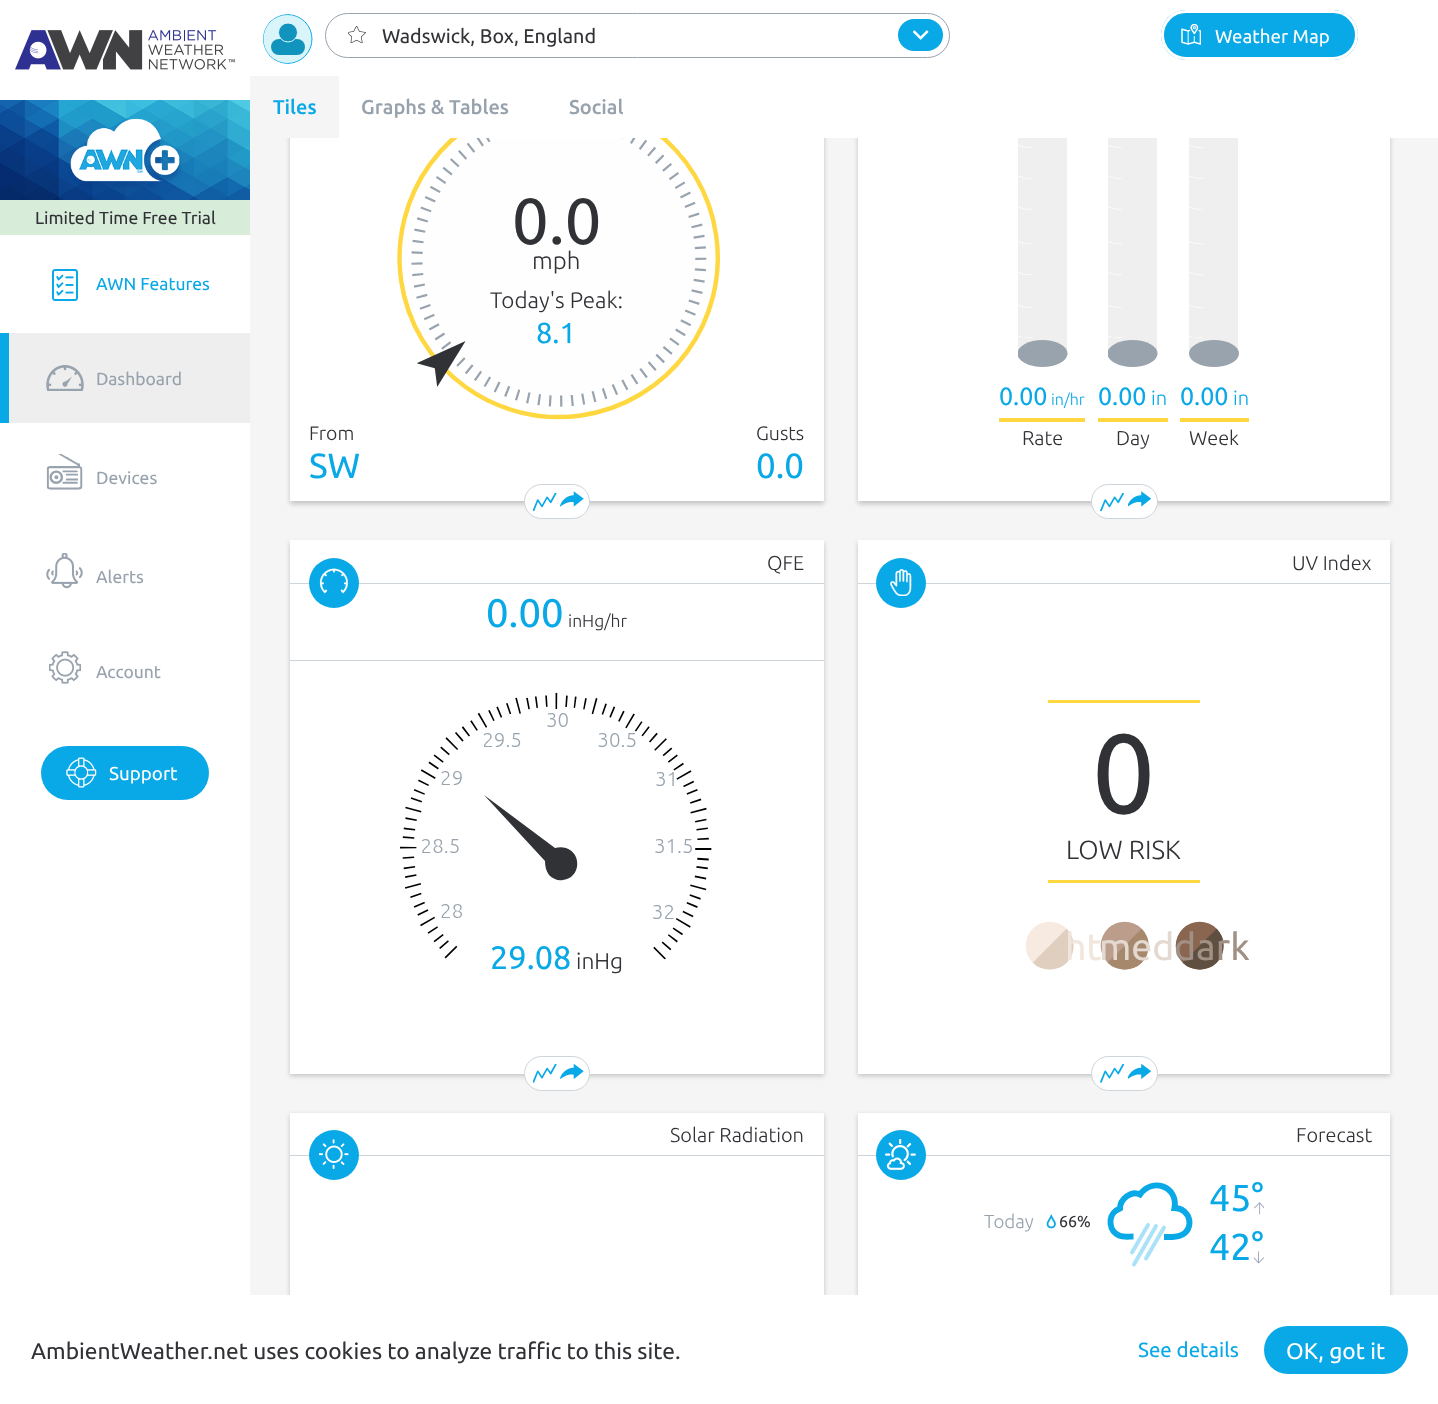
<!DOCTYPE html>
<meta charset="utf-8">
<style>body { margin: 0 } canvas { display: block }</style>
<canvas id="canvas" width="1438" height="1404"></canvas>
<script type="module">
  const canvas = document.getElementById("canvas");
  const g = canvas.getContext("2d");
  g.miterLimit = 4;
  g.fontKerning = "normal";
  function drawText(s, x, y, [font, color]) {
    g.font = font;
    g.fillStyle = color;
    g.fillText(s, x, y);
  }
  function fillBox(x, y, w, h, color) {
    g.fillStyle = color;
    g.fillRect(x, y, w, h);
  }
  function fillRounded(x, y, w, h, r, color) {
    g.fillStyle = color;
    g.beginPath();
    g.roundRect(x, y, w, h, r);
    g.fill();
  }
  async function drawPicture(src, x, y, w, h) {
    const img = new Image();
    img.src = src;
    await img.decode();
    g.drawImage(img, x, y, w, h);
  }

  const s1 = ["19.75px Ubuntu", "#313236"];
  const s2 = ["500 20px Ubuntu", "#09A8E6"];
  const s3 = ["500 20px Ubuntu", "#97A2AD"];
  const s4 = ["65px Ubuntu", "#313236"];
  const s5 = ["300 24px Ubuntu", "#313236"];
  const s6 = ["300 22.5px Ubuntu", "#313236"];
  const s7 = ["29px Ubuntu", "#09A8E6"];
  const s8 = ["300 19.5px Ubuntu", "#313236"];
  const s9 = ["35px Ubuntu", "#09A8E6"];
  const s10 = ["25px Ubuntu", "#09A8E6"];
  const s11 = ["300 16px Ubuntu", "#09A8E6"];
  const s12 = ["300 20px Ubuntu", "#313236"];
  const s13 = ["300 20px Ubuntu", "#09A8E6"];
  const s14 = ["40px Ubuntu", "#09A8E6"];
  const s15 = ["300 17.5px Ubuntu", "#313236"];
  const s16 = ["32.5px Ubuntu", "#09A8E6"];
  const s17 = ["300 22.75px Ubuntu", "#313236"];
  const s18 = ["112px Ubuntu", "#313236"];
  const s19 = ["300 26.25px Ubuntu", "#313236"];
  const s20 = ["37.5px Ubuntu", "#F0E6DD"];
  const s21 = ["37.5px Ubuntu", "#E3D9D1"];
  const s22 = ["37.5px Ubuntu", "#A19085"];
  const s23 = ["300 18.75px Ubuntu", "#97A2AD"];
  const s24 = ["16px Ubuntu", "#313236"];
  const s25 = ["37.5px Ubuntu", "#09A8E6"];
  const s26 = ["18.75px Ubuntu", "#FFFFFF"];
  const s27 = ["17.5px Ubuntu", "#313236"];
  const s28 = ["17.5px Ubuntu", "#09A8E6"];
  const s29 = ["17.5px Ubuntu", "#97A2AD"];
  const s30 = ["22.75px Ubuntu", "#313236"];
  const s31 = ["20.5px Ubuntu", "#09A8E6"];
  const s32 = ["22.75px Ubuntu", "#FFFFFF"];

  fillBox(0, 0, 1438, 1404, "#F5F5F5");
  g.fillStyle = "rgba(0, 0, 0, 0.2)";
  g.filter = "blur(2.5px)";
  g.beginPath();
  g.rect(290, -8, 534, 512);
  g.fill();
  g.filter = "none";
  g.filter = "blur(2.5px)";
  g.beginPath();
  g.rect(858, -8, 532, 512);
  g.fill();
  g.filter = "none";
  fillBox(250, 0, 1188, 138, "#FFFFFF");
  g.fillStyle = "#DAF5FA";
  g.beginPath();
  g.arc(287.5, 39, 24.5, 0, Math.PI * 2);
  g.fill();
  g.save();
  g.beginPath();
  g.roundRect(263, 14, 50, 50, 25);
  g.clip();
  g.beginPath();
  g.arc(287.5, 39, 24.5, 0, Math.PI * 2);
  g.strokeStyle = "#09A8E6";
  g.stroke();
  g.restore();
  fillRounded(271, 39, 34, 16, 8, "#1094BE");
  g.beginPath();
  g.arc(288, 32.5, 9.5, 0, Math.PI * 2);
  g.fill();
  g.strokeStyle = "#DAF5FA";
  g.stroke();
  g.beginPath();
  g.roundRect(325.5, 13.5, 624, 44, 22);
  g.strokeStyle = "#98A3AE";
  g.stroke();
  await drawPicture("pic1.png", 348, 26, 18, 18);
  drawText("Wadswick, Box, England", 382, 43, s1);
  fillRounded(898, 19, 45, 32, 16, "#09A8E6");
  await drawPicture("pic2.png", 913, 30, 16, 10);
  fillBox(250, 76, 89, 62, "#F5F5F5");
  drawText("Tiles", 273, 114, s2);
  drawText("Graphs & Tables", 361, 114, s3);
  drawText("Social", 569, 114, s3);
  fillBox(290, 138, 534, 363, "#FFFFFF");
  await drawPicture("pic3.png", 397, 138, 323, 282);
  drawText("0.0", 512, 244, s4);
  drawText("mph", 532, 269, s5);
  drawText("Today's Peak:", 490, 308, s6);
  drawText("8.1", 536, 343, s7);
  drawText("From", 309, 440, s8);
  drawText("SW", 309, 478, s9);
  drawText("Gusts", 756, 440, s8);
  drawText("0.0", 756, 478, s9);
  g.fillStyle = "#FFFFFF";
  g.beginPath();
  g.roundRect(524.5, 484.5, 65, 34, 17);
  g.fill();
  g.strokeStyle = "#CDD4DA";
  g.stroke();
  await drawPicture("pic4.png", 533, 493, 24, 18);
  await drawPicture("pic5.png", 560, 491, 24, 16);
  fillBox(858, 138, 532, 363, "#FFFFFF");
  fillBox(1018, 138, 49, 213, "#EFEFEF");
  g.save();
  g.beginPath();
  g.rect(1018, 340, 50, 28);
  g.clip();
  g.fillStyle = "#98A3AE";
  g.beginPath();
  g.ellipse(1042.5, 353.5, 25, 13.5, 0, 0, Math.PI * 2);
  g.fill();
  g.restore();
  await drawPicture("pic6.png", 1018, 144, 15, 222);
  fillBox(999, 418, 86, 4, "#FED741");
  drawText("0.00", 999, 405, s10);
  drawText("in/hr", 1051, 405, s11);
  drawText("Rate", 1022, 445, s12);
  fillBox(1108, 138, 49, 213, "#EFEFEF");
  g.save();
  g.beginPath();
  g.rect(1108, 340, 50, 28);
  g.clip();
  g.fillStyle = "#98A3AE";
  g.beginPath();
  g.ellipse(1132.5, 353.5, 25, 13.5, 0, 0, Math.PI * 2);
  g.fill();
  g.restore();
  await drawPicture("pic6.png", 1108, 144, 15, 222);
  fillBox(1098, 418, 70, 4, "#FED741");
  drawText("0.00", 1098, 405, s10);
  drawText("in", 1151, 405, s13);
  drawText("Day", 1116, 445, s12);
  fillBox(1189, 138, 49, 216, "#EFEFEF");
  await drawPicture("pic7.png", 1189, 144, 15, 194);
  g.fillStyle = "#98A3AE";
  g.beginPath();
  g.ellipse(1214, 353.5, 25, 13.5, 0, 0, Math.PI * 2);
  g.fill();
  fillBox(1180, 418, 69, 4, "#FED741");
  drawText("0.00", 1180, 405, s10);
  drawText("in", 1233, 405, s13);
  drawText("Week", 1189, 445, s12);
  g.fillStyle = "#FFFFFF";
  g.beginPath();
  g.roundRect(1091.5, 484.5, 66, 34, 17);
  g.fill();
  g.stroke();
  await drawPicture("pic8.png", 1100, 493, 24, 18);
  await drawPicture("pic9.png", 1128, 491, 23, 16);
  g.fillStyle = "rgba(0, 0, 0, 0.2)";
  g.filter = "blur(2.5px)";
  g.beginPath();
  g.rect(290, 543, 534, 533);
  g.fill();
  g.filter = "none";
  fillBox(290, 540, 534, 534, "#FFFFFF");
  fillBox(290, 583, 534, 1, "#CDD4DA");
  g.fillStyle = "#09A8E6";
  g.beginPath();
  g.arc(334, 583, 25, 0, Math.PI * 2);
  g.fill();
  await drawPicture("pic10.png", 319, 568, 29, 26);
  drawText("QFE", 767, 570, s12);
  fillBox(290, 660, 534, 1, "#CDD4DA");
  drawText("0.00", 486, 627, s14);
  drawText("inHg/hr", 568, 627, s15);
  await drawPicture("pic11.png", 400, 692, 312, 268);
  g.beginPath();
  g.moveTo(555, 848);
  g.bezierCurveTo(559, 847, 562, 847, 566, 848);
  g.bezierCurveTo(582, 853, 581, 878, 563, 880);
  g.bezierCurveTo(558, 881, 553, 879, 549, 875);
  g.bezierCurveTo(546, 871, 545, 866, 545, 861);
  g.lineTo(484, 795);
  g.closePath();
  g.fill("evenodd");
  drawText("29.08", 490, 969, s16);
  drawText("inHg", 576, 969, s17);
  g.fillStyle = "#FFFFFF";
  g.beginPath();
  g.roundRect(524.5, 1056.5, 65, 34, 17);
  g.fill();
  g.stroke();
  await drawPicture("pic12.png", 533, 1064, 24, 19);
  await drawPicture("pic13.png", 560, 1064, 24, 15);
  g.fillStyle = "rgba(0, 0, 0, 0.2)";
  g.filter = "blur(2.5px)";
  g.beginPath();
  g.rect(858, 543, 532, 533);
  g.fill();
  g.filter = "none";
  fillBox(858, 540, 532, 534, "#FFFFFF");
  fillBox(858, 583, 532, 1, "#CDD4DA");
  g.fillStyle = "#09A8E6";
  g.beginPath();
  g.arc(901, 583, 25, 0, Math.PI * 2);
  g.fill();
  await drawPicture("pic14.png", 890, 569, 22, 27);
  drawText("UV Index", 1292, 570, s12);
  fillBox(1048, 700, 152, 3, "#FED741");
  fillBox(1048, 880, 152, 3, "#FED741");
  drawText("0", 1092, 813, s18);
  drawText("LOW RISK", 1066, 859, s19);
  await drawPicture("pic15.png", 1025, 921, 49, 49);
  drawText("ht", 1065, 960, s20);
  await drawPicture("pic16.png", 1100, 921, 49, 49);
  drawText("med", 1099, 960, s21);
  await drawPicture("pic17.png", 1175, 921, 49, 49);
  drawText("dark", 1174, 960, s22);
  g.fillStyle = "#FFFFFF";
  g.beginPath();
  g.roundRect(1091.5, 1056.5, 66, 34, 17);
  g.fill();
  g.stroke();
  await drawPicture("pic18.png", 1100, 1064, 24, 19);
  await drawPicture("pic19.png", 1128, 1064, 23, 15);
  g.fillStyle = "rgba(0, 0, 0, 0.2)";
  g.filter = "blur(2.5px)";
  g.beginPath();
  g.rect(290, 1115, 534, 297);
  g.fill();
  g.filter = "none";
  fillBox(290, 1113, 534, 182, "#FFFFFF");
  fillBox(290, 1155, 534, 1, "#CDD4DA");
  g.fillStyle = "#09A8E6";
  g.beginPath();
  g.arc(334, 1155, 25, 0, Math.PI * 2);
  g.fill();
  await drawPicture("pic20.png", 319, 1139, 30, 30);
  drawText("Solar Radiation", 670, 1142, s12);
  g.fillStyle = "rgba(0, 0, 0, 0.2)";
  g.filter = "blur(2.5px)";
  g.beginPath();
  g.rect(858, 1115, 532, 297);
  g.fill();
  g.filter = "none";
  fillBox(858, 1113, 532, 182, "#FFFFFF");
  fillBox(858, 1155, 532, 1, "#CDD4DA");
  g.fillStyle = "#09A8E6";
  g.beginPath();
  g.arc(901, 1155, 25, 0, Math.PI * 2);
  g.fill();
  await drawPicture("pic21.png", 885, 1139, 31, 31);
  drawText("Forecast", 1296, 1142, s12);
  drawText("Today", 984, 1228, s23);
  await drawPicture("pic22.png", 1046, 1214, 10, 15);
  drawText("66%", 1059, 1227, s24);
  g.beginPath();
  g.moveTo(1148, 1225);
  g.lineTo(1132, 1252.5);
  g.moveTo(1156, 1226);
  g.lineTo(1134, 1264.5);
  g.moveTo(1164, 1227.5);
  g.lineTo(1146, 1258.5);
  g.strokeStyle = "#ABE2F7";
  g.lineWidth = 4;
  g.lineCap = "round";
  g.lineJoin = "round";
  g.stroke();
  g.beginPath();
  g.moveTo(1164, 1237);
  g.bezierCurveTo(1169.5, 1237, 1175.5, 1237.5, 1180.5, 1235.5);
  g.bezierCurveTo(1195.5, 1229.5, 1190.5, 1208, 1174.5, 1208);
  g.bezierCurveTo(1178.5, 1186.5, 1152, 1177, 1140, 1194.5);
  g.bezierCurveTo(1131, 1190, 1120, 1199.5, 1120, 1208.5);
  g.lineTo(1116, 1210.5);
  g.bezierCurveTo(1107.5, 1217, 1109, 1231, 1119, 1235.5);
  g.bezierCurveTo(1123.5, 1237.5, 1129, 1236.5, 1133.5, 1236.5);
  g.strokeStyle = "#09A8E6";
  g.lineWidth = 5.9;
  g.lineCap = "butt";
  g.lineJoin = "miter";
  g.stroke();
  await drawPicture("pic23.png", 1254, 1202, 10, 13);
  drawText("45°", 1209, 1211, s25);
  await drawPicture("pic24.png", 1253, 1251, 11, 13);
  drawText("42°", 1209, 1260, s25);
  fillRounded(1161, 10, 197, 50, 25, "#09A8E6");
  await drawPicture("pic25.png", 1181, 24, 20, 21);
  g.beginPath();
  g.roundRect(1162.5, 11.5, 194, 47, 23.5);
  g.strokeStyle = "#FFFFFF";
  g.lineWidth = 3;
  g.stroke();
  drawText("Weather Map", 1215, 43, s26);
  fillBox(0, 0, 250, 1295, "#FFFFFF");
  await drawPicture("pic26.png", 15, 30, 220, 40);
  await drawPicture("pic27.png", 0, 100, 250, 100);
  fillBox(0, 200, 250, 35, "#D7EDDA");
  drawText("Limited Time Free Trial", 35, 224, s27);
  await drawPicture("pic28.png", 52, 269, 26, 32);
  drawText("AWN Features", 96, 290, s28);
  fillBox(9, 333, 241, 90, "#EEEEEE");
  fillBox(0, 333, 9, 90, "#09A8E6");
  await drawPicture("pic29.png", 46, 365, 38, 26);
  drawText("Dashboard", 96, 385, s29);
  await drawPicture("pic30.png", 46, 454, 37, 36);
  drawText("Devices", 96, 484, s29);
  await drawPicture("pic31.png", 46, 553, 37, 36);
  drawText("Alerts", 96, 583, s29);
  await drawPicture("pic32.png", 49, 651, 32, 33);
  drawText("Account", 96, 678, s29);
  fillRounded(41, 746, 168, 54, 27, "#09A8E6");
  await drawPicture("pic33.png", 66, 757, 31, 31);
  drawText("Support", 109, 780, s26);
  fillBox(0, 1295, 1438, 109, "#FFFFFF");
  drawText("AmbientWeather.net uses cookies to analyze traffic to this site.", 31, 1359, s30);
  drawText("See details", 1138, 1357, s31);
  fillRounded(1264, 1326, 144, 48, 24, "#09A8E6");
  drawText("OK, got it", 1286, 1359, s32);
</script>
